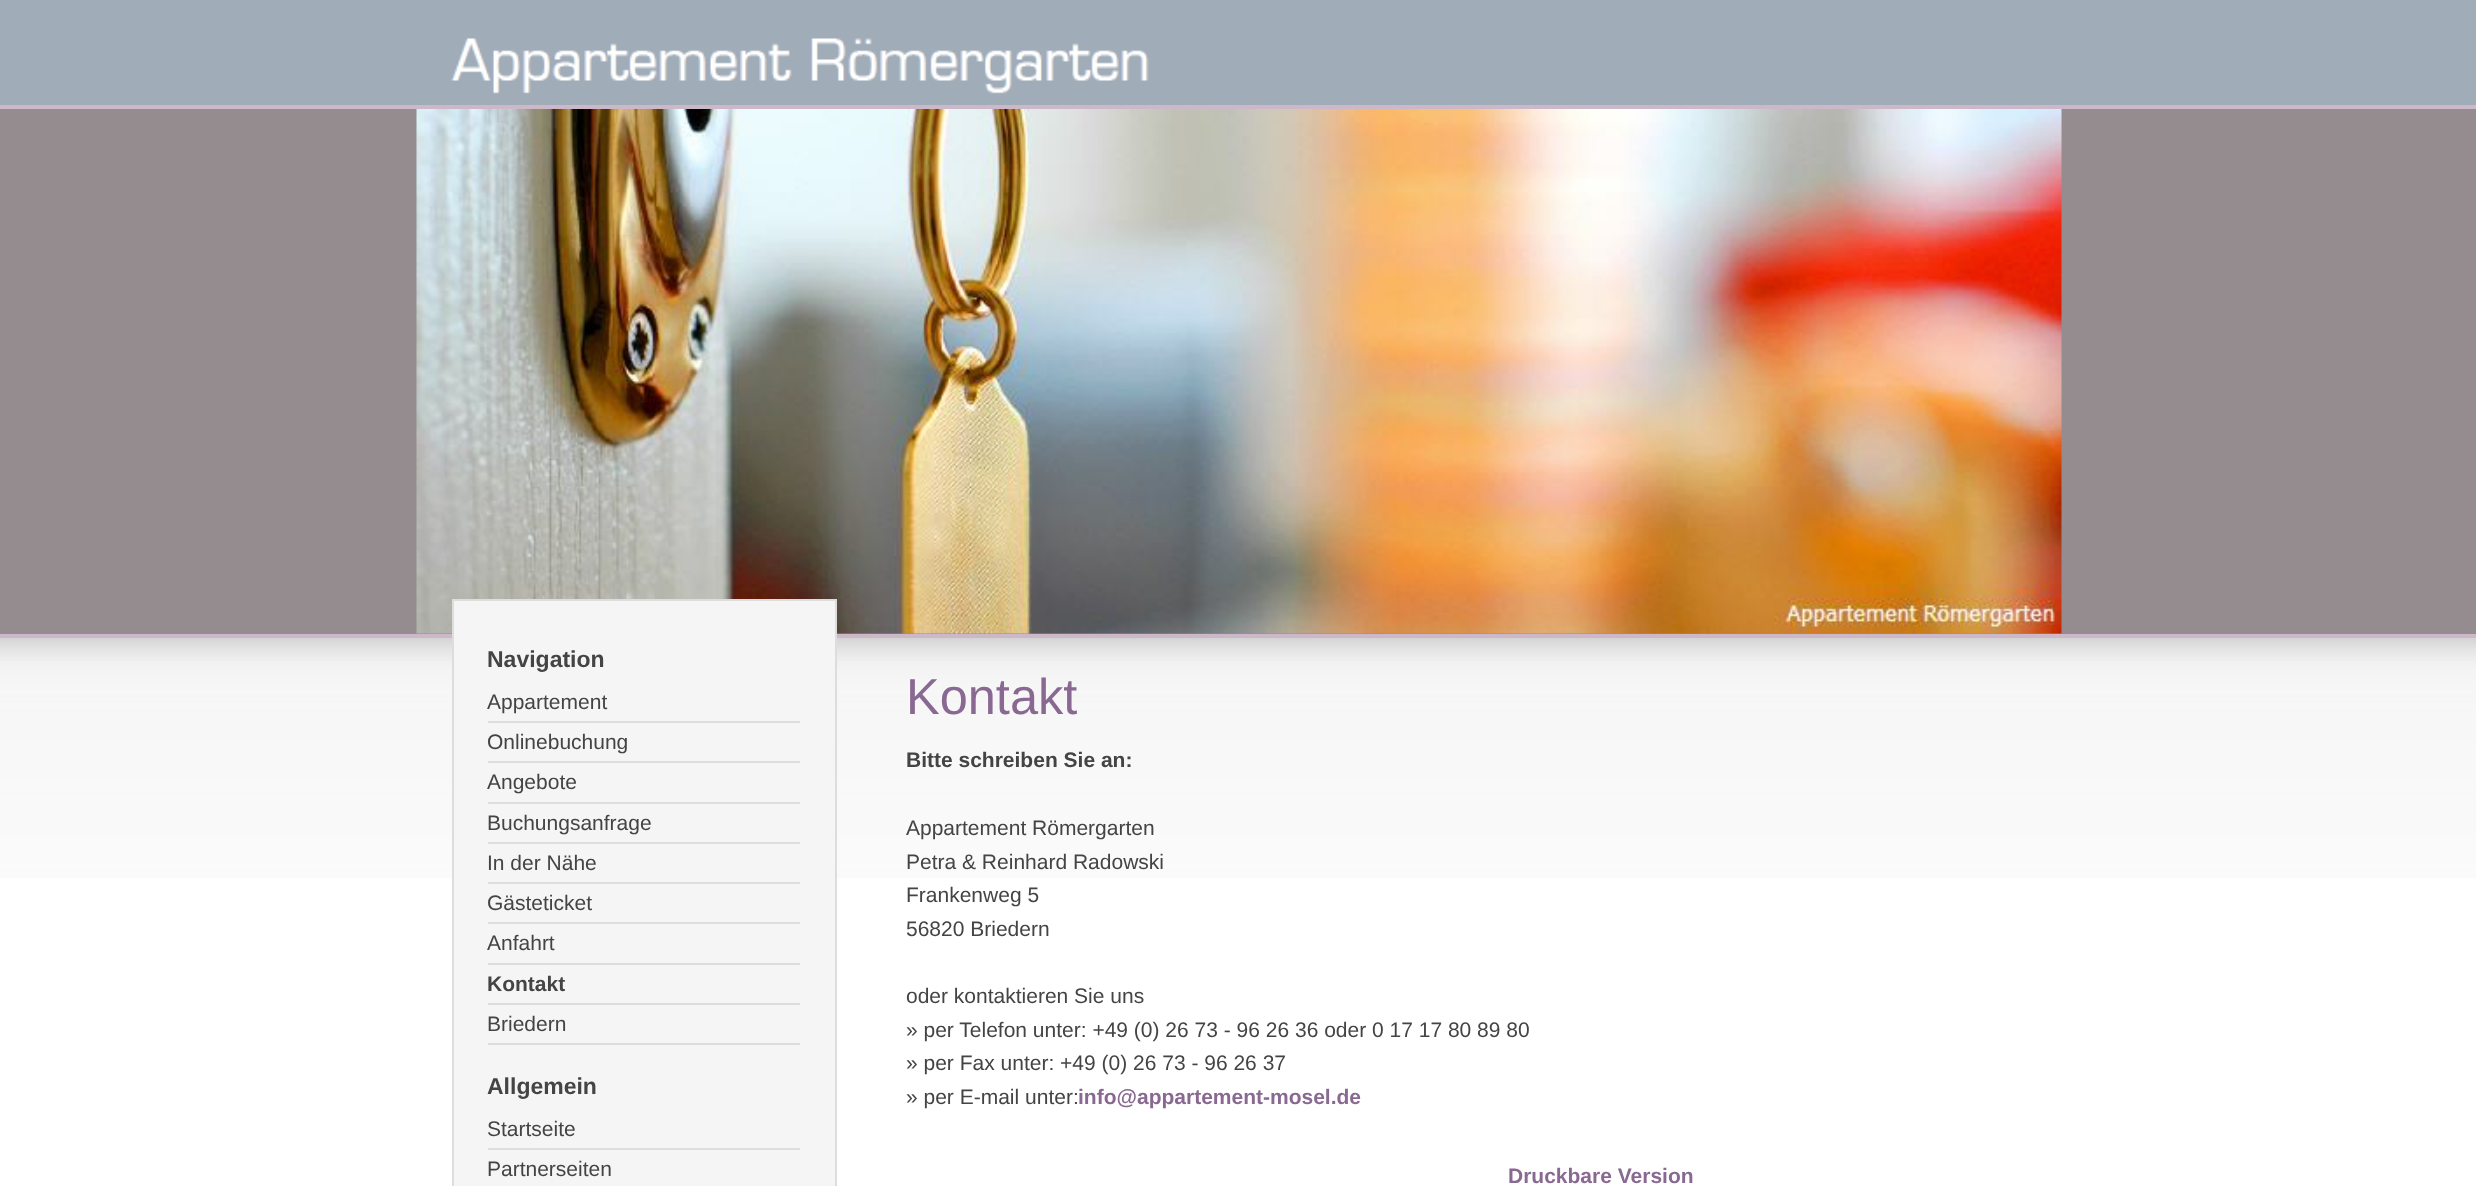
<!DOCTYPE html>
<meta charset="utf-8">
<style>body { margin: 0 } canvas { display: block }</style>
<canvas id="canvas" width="2476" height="1186"></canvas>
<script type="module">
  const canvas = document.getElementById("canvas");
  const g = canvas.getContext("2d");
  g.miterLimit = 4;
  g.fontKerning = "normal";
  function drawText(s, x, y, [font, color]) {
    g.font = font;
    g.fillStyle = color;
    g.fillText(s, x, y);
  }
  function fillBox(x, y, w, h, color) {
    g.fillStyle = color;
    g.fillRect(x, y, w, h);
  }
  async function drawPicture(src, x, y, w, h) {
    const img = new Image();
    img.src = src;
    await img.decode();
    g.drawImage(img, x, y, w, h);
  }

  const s1 = ["bold 23px Liberation Sans", "#444444"];
  const s2 = ["21px Liberation Sans", "#444444"];
  const s3 = ["bold 21px Liberation Sans", "#444444"];
  const s4 = ["50.5px Liberation Sans", "#896991"];
  const s5 = ["bold 21px Liberation Sans", "#896991"];

  fillBox(0, 0, 2476, 1186, "#FFFFFF");
  await drawPicture("pic1.png", 0, 638, 2476, 240);
  fillBox(0, 0, 2476, 105, "#A0ACB8");
  await drawPicture("pic2.png", 451, 38, 698, 56);
  fillBox(0, 109, 2476, 525, "#958C90");
  await drawPicture("pic3.png", 416, 109, 1646, 525);
  fillBox(0, 105, 2476, 4, "#CCB8C8");
  fillBox(0, 634, 2476, 4, "#CCB8C8");
  g.fillStyle = "#F5F5F5";
  g.beginPath();
  g.rect(453, 600, 383, 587);
  g.fill();
  g.strokeStyle = "#DDDDDD";
  g.lineWidth = 2;
  g.stroke();
  drawText("Navigation", 487, 667, s1);
  fillBox(488, 721, 312, 2, "#DDDDDD");
  drawText("Appartement", 487, 709, s2);
  fillBox(488, 761, 312, 2, "#DDDDDD");
  drawText("Onlinebuchung", 487, 749, s2);
  fillBox(488, 802, 312, 2, "#DDDDDD");
  drawText("Angebote", 487, 789, s2);
  fillBox(488, 842, 312, 2, "#DDDDDD");
  drawText("Buchungsanfrage", 487, 830, s2);
  fillBox(488, 882, 312, 2, "#DDDDDD");
  drawText("In der Nähe", 487, 870, s2);
  fillBox(488, 922, 312, 2, "#DDDDDD");
  drawText("Gästeticket", 487, 910, s2);
  fillBox(488, 963, 312, 2, "#DDDDDD");
  drawText("Anfahrt", 487, 950, s2);
  fillBox(488, 1003, 312, 2, "#DDDDDD");
  drawText("Kontakt", 487, 991, s3);
  fillBox(488, 1043, 312, 2, "#DDDDDD");
  drawText("Briedern", 487, 1031, s2);
  drawText("Allgemein", 487, 1094, s1);
  fillBox(488, 1148, 312, 2, "#DDDDDD");
  drawText("Startseite", 487, 1136, s2);
  drawText("Partnerseiten", 487, 1176, s2);
  drawText("Kontakt", 906, 714, s4);
  drawText("Bitte schreiben Sie an:", 906, 767, s3);
  drawText("Appartement Römergarten", 906, 835, s2);
  drawText("Petra & Reinhard Radowski", 906, 869, s2);
  drawText("Frankenweg 5", 906, 902, s2);
  drawText("56820 Briedern", 906, 936, s2);
  drawText("oder kontaktieren Sie uns", 906, 1003, s2);
  drawText("» per Telefon unter: +49 (0) 26 73 - 96 26 36 oder 0 17 17 80 89 80", 906, 1037, s2);
  drawText("» per Fax unter: +49 (0) 26 73 - 96 26 37", 906, 1070, s2);
  drawText("» per E-mail unter:", 906, 1104, s2);
  drawText("info@appartement-mosel.de", 1078, 1104, s5);
  drawText("Druckbare Version", 1508, 1183, s5);
</script>
